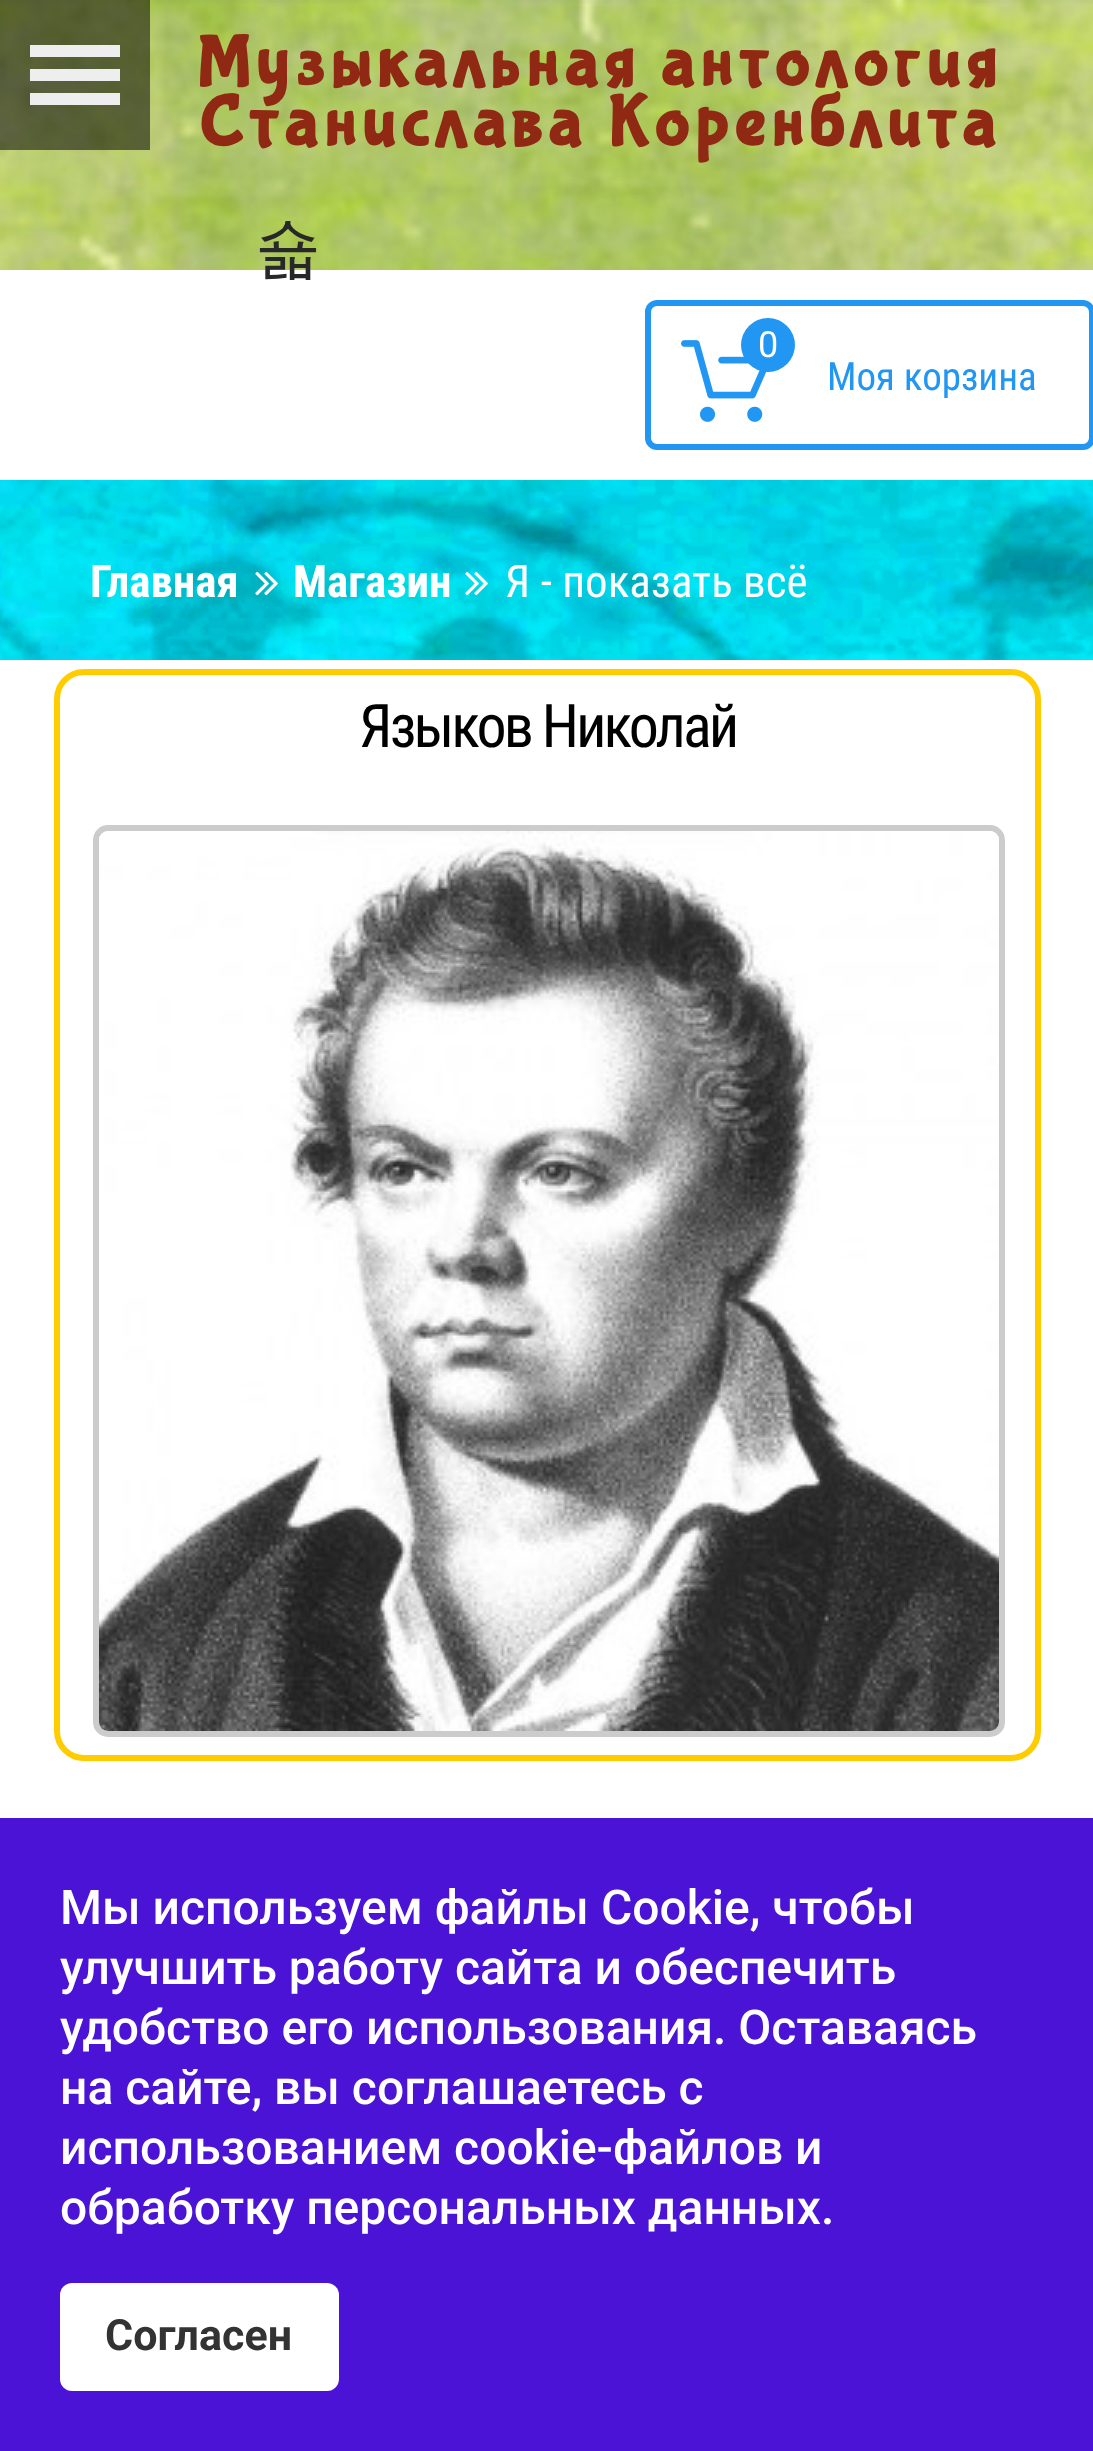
<!DOCTYPE html>
<meta charset="utf-8">
<style>body { margin: 0 } canvas { display: block }</style>
<canvas id="canvas" width="1093" height="2451"></canvas>
<script type="module">
  const canvas = document.getElementById("canvas");
  const g = canvas.getContext("2d");
  g.miterLimit = 4;
  g.fontKerning = "normal";
  function drawText(s, x, y, [font, color]) {
    g.font = font;
    g.fillStyle = color;
    g.fillText(s, x, y);
  }
  function fillBox(x, y, w, h, color) {
    g.fillStyle = color;
    g.fillRect(x, y, w, h);
  }
  function fillRounded(x, y, w, h, r, color) {
    g.fillStyle = color;
    g.beginPath();
    g.roundRect(x, y, w, h, r);
    g.fill();
  }
  async function drawPicture(src, x, y, w, h) {
    const img = new Image();
    img.src = src;
    await img.decode();
    g.drawImage(img, x, y, w, h);
  }

  const s1 = ["bold 72px Bubblegum Sans", "#902914"];
  const s2 = ["500 66px WenQuanYi Zen Hei", "#282828"];
  const s3 = ["36px Roboto", "#FFFFFF"];
  const s4 = ["39px Roboto Condensed", "#2196F3"];
  const s5 = ["bold 45px Roboto Condensed", "#FFFFFF"];
  const s6 = ["45px Roboto Condensed", "#FFFFFF"];
  const s7 = ["60px Roboto Condensed", "#000000"];
  const s8 = ["500 48px Roboto", "#FFFFFF"];
  const s9 = ["bold 43px Roboto", "#333333"];

  fillBox(0, 0, 1093, 2451, "#FFFFFF");
  await drawPicture("pic1.png", 0, 0, 1093, 270);
  fillBox(0, 0, 150, 150, "rgba(0, 0, 0, 0.53)");
  fillBox(30, 45, 90, 12, "#EEEEEE");
  fillBox(30, 69, 90, 12, "#EEEEEE");
  fillBox(30, 93, 90, 12, "#EEEEEE");
  g.letterSpacing = "6px";
  drawText("Музыкальная антология", 197, 84, s1);
  drawText("Станислава Коренблита", 199, 144, s1);
  g.letterSpacing = "0px";
  drawText("숇", 255, 270, s2);
  g.beginPath();
  g.roundRect(648, 303, 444, 144, 9);
  g.strokeStyle = "#2196F3";
  g.lineWidth = 6;
  g.stroke();
  await drawPicture("pic2.png", 681, 340, 86, 82);
  g.fillStyle = "#2196F3";
  g.beginPath();
  g.arc(768, 345, 27, 0, Math.PI * 2);
  g.fill();
  drawText("0", 758, 357, s3);
  drawText("Моя корзина", 827, 390, s4);
  await drawPicture("pic3.png", 0, 480, 1093, 180);
  drawText("Главная", 90, 597, s5);
  await drawPicture("pic4.png", 255, 571, 23, 25);
  drawText("Магазин", 293, 597, s5);
  await drawPicture("pic5.png", 465, 571, 23, 25);
  drawText("Я - показать всё", 505, 597, s6);
  g.beginPath();
  g.roundRect(57, 672, 981, 1086, 27);
  g.strokeStyle = "#FFCC00";
  g.stroke();
  g.letterSpacing = "-3px";
  drawText("Языков Николай", 359, 747, s7);
  g.beginPath();
  g.roundRect(96, 828, 906, 906, 12);
  g.strokeStyle = "#CCCCCC";
  g.stroke();
  await drawPicture("pic6.png", 99, 831, 900, 900);
  fillBox(0, 1818, 1093, 633, "#4A13D6");
  g.letterSpacing = "0px";
  drawText("Мы используем файлы Сookie, чтобы", 60, 1924, s8);
  drawText("улучшить работу сайта и обеспечить", 60, 1984, s8);
  drawText("удобство его использования. Оставаясь", 60, 2044, s8);
  drawText("на сайте, вы соглашаетесь с", 60, 2104, s8);
  drawText("использованием cookie-файлов и", 60, 2164, s8);
  drawText("обработку персональных данных.", 60, 2224, s8);
  fillRounded(60, 2283, 279, 108, 12, "#FFFFFF");
  drawText("Согласен", 105, 2350, s9);
</script>
